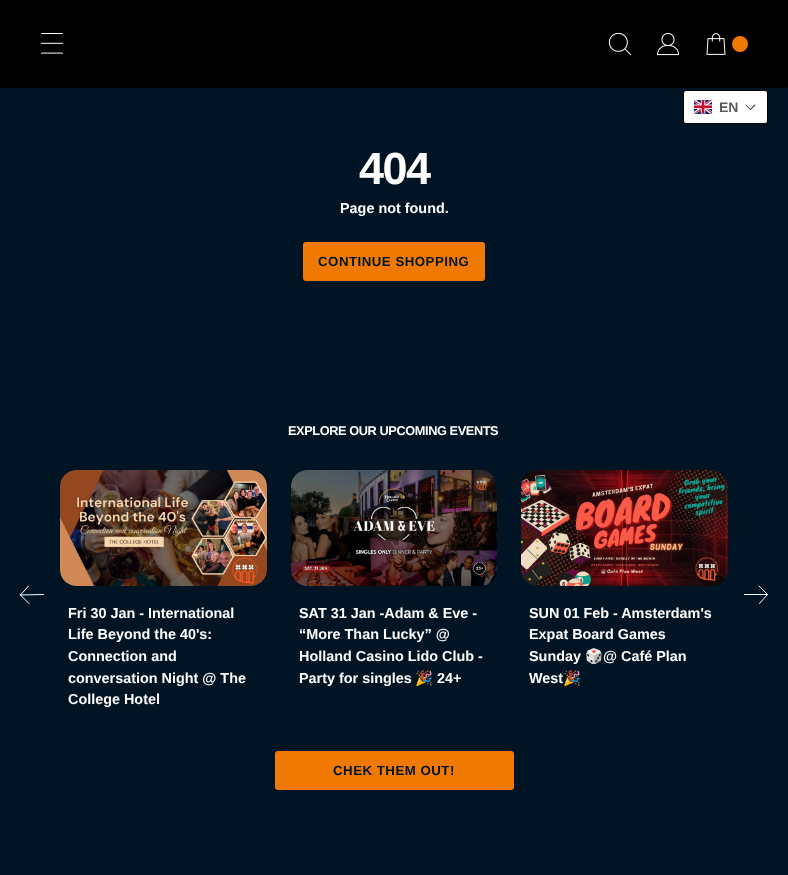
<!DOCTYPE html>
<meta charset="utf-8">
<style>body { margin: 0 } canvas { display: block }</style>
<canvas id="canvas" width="788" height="875"></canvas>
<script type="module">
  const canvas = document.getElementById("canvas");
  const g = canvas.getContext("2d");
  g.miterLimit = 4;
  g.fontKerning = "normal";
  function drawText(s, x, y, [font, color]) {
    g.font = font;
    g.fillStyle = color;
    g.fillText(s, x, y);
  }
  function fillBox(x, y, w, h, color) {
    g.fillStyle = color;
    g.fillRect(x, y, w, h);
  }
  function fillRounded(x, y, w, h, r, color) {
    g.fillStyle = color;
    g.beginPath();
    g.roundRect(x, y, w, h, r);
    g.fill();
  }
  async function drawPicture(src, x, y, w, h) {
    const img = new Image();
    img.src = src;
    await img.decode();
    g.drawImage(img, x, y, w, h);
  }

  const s1 = ["bold 14px Liberation Sans", "#5C5C5C"];
  const s2 = ["bold 45px Liberation Sans", "#FFFFFF"];
  const s3 = ["bold 14.4px Liberation Sans", "#FFFFFF"];
  const s4 = ["bold 13.25px Liberation Sans", "#011423"];
  const s5 = ["bold 12.75px Liberation Sans", "#FFFFFF"];
  const s6 = ["bold 14.4px Noto Color Emoji", "#FFFFFF"];

  fillBox(0, 0, 788, 875, "#011423");
  g.fillStyle = "#000000";
  g.beginPath();
  g.roundRect(0, 0, 788, 88, [0, 0, 2, 2]);
  g.fill();
  await drawPicture("pic1.png", 41, 33, 22, 21);
  await drawPicture("pic2.png", 608, 32, 24, 24);
  await drawPicture("pic3.png", 656, 32, 24, 24);
  await drawPicture("pic4.png", 706, 33, 20, 22);
  g.fillStyle = "#F07904";
  g.beginPath();
  g.arc(740, 44, 8, 0, Math.PI * 2);
  g.fill();
  g.fillStyle = "#FFFFFF";
  g.beginPath();
  g.roundRect(683.5, 90.5, 84, 33, 2.5);
  g.fill();
  g.strokeStyle = "#000000";
  g.stroke();
  await drawPicture("pic5.png", 694, 100, 18, 14);
  drawText("EN", 719, 112, s1);
  g.fillStyle = "#1A1A1A";
  g.beginPath();
  g.moveTo(754.5, 104.5);
  g.lineTo(755.5, 105);
  g.lineTo(750.5, 110);
  g.lineTo(750, 109.5);
  g.closePath();
  g.fill();
  g.beginPath();
  g.moveTo(746, 104.5);
  g.lineTo(751, 109.5);
  g.lineTo(750.5, 110);
  g.lineTo(745.5, 105);
  g.closePath();
  g.fill();
  g.letterSpacing = "-1.5px";
  drawText("404", 359, 184, s2);
  g.letterSpacing = "0px";
  drawText("Page not found.", 340, 213, s3);
  fillRounded(303, 242, 182, 39, 3, "#F07904");
  g.letterSpacing = "0.5px";
  drawText("CONTINUE SHOPPING", 318, 266, s4);
  g.letterSpacing = "-0.4px";
  drawText("EXPLORE OUR UPCOMING EVENTS", 288, 435, s5);
  g.beginPath();
  g.moveTo(20.5, 595);
  g.lineTo(29, 603.5);
  g.moveTo(20.5, 595);
  g.lineTo(28.5, 586);
  g.moveTo(20.5, 595);
  g.lineTo(43.5, 594.5);
  g.strokeStyle = "#FFFFFF";
  g.lineCap = "round";
  g.lineJoin = "round";
  g.stroke();
  g.beginPath();
  g.moveTo(767.5, 594.5);
  g.lineTo(759, 586);
  g.moveTo(767.5, 594.5);
  g.lineTo(759.5, 603.5);
  g.moveTo(767.5, 594.5);
  g.lineTo(744.5, 594.5);
  g.stroke();
  await drawPicture("pic6.png", 60, 470, 207, 116);
  g.letterSpacing = "0px";
  drawText("Fri 30 Jan - International", 68, 618, s3);
  drawText("Life Beyond the 40's:", 68, 639, s3);
  drawText("Connection and", 68, 661, s3);
  drawText("conversation Night @ The", 68, 683, s3);
  drawText("College Hotel", 68, 704, s3);
  await drawPicture("pic7.png", 291, 470, 206, 116);
  drawText("SAT 31 Jan -Adam & Eve -", 299, 618, s3);
  drawText("“More Than Lucky” @", 299, 639, s3);
  drawText("Holland Casino Lido Club -", 299, 661, s3);
  drawText("Party for singles", 299, 683, s3);
  drawText("🎉", 415, 683, s6);
  drawText("24+", 437, 683, s3);
  await drawPicture("pic8.png", 521, 470, 207, 116);
  drawText("SUN 01 Feb - Amsterdam's", 529, 618, s3);
  drawText("Expat Board Games", 529, 639, s3);
  drawText("Sunday", 529, 661, s3);
  drawText("🎲", 585, 661, s6);
  drawText("@ Café Plan", 603, 661, s3);
  drawText("West", 529, 683, s3);
  drawText("🎉", 563, 683, s6);
  fillRounded(275, 751, 239, 39, 3, "#F07904");
  g.letterSpacing = "0.5px";
  drawText("CHEK THEM OUT!", 333, 775, s4);
</script>
